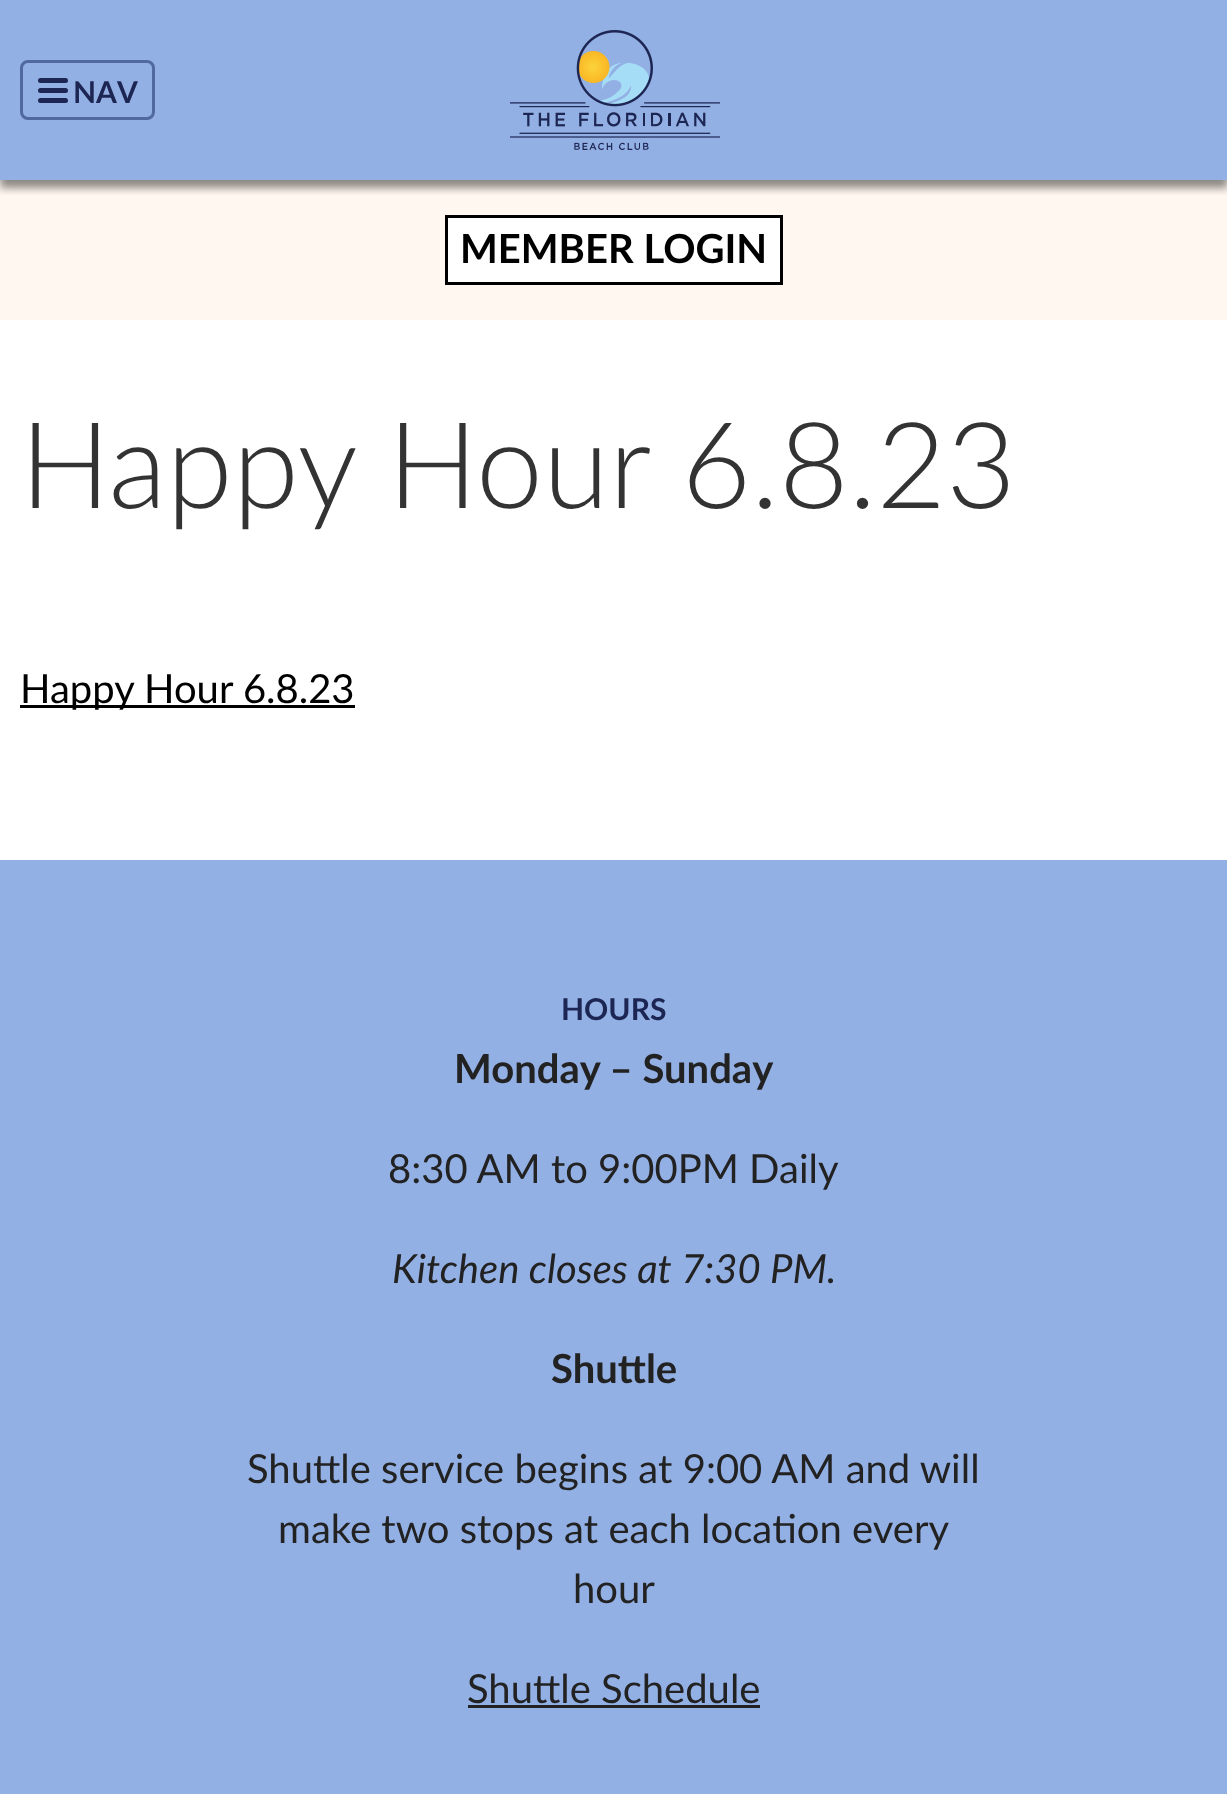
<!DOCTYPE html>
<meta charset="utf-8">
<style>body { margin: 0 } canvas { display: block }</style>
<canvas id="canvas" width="1227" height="1794"></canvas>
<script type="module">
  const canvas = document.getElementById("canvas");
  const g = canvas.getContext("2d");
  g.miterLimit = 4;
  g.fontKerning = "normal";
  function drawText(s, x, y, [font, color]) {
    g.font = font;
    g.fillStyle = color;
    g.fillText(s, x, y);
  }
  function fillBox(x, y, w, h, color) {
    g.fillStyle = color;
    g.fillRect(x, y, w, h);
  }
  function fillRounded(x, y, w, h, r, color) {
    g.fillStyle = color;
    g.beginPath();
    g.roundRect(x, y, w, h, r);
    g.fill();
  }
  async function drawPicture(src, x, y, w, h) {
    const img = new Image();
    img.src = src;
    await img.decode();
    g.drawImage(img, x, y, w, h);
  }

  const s1 = ["bold 30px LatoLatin", "#1D2653"];
  const s2 = ["bold 40px LatoLatin", "#000000"];
  const s3 = ["300 120px LatoLatin", "#333333"];
  const s4 = ["40px LatoLatin", "#000000"];
  const s5 = ["bold 40px LatoLatin", "#222222"];
  const s6 = ["40px LatoLatin", "#222222"];
  const s7 = ["italic 40px LatoLatin", "#222222"];

  fillBox(0, 0, 1227, 1794, "#FFF7F0");
  fillBox(0, 0, 1227, 180, "#93B0E5");
  await drawPicture("pic1.png", 510, 30, 210, 120);
  g.save();
  g.beginPath();
  g.rect(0, 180, 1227, 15);
  g.clip();
  g.fillStyle = "rgba(25, 25, 25, 0.5)";
  g.filter = "blur(4px)";
  g.beginPath();
  g.rect(0, 8, 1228, 180);
  g.fill();
  g.filter = "none";
  g.restore();
  g.beginPath();
  g.roundRect(21.5, 61.5, 132, 57, 6.5);
  g.strokeStyle = "#52699E";
  g.lineWidth = 3;
  g.stroke();
  fillRounded(38, 88, 30, 5, 2.5, "#1D2653");
  fillRounded(38, 78, 30, 5, 2.5, "#1D2653");
  fillRounded(38, 98, 30, 5, 2.5, "#1D2653");
  drawText("NAV", 73, 103, s1);
  g.fillStyle = "#FFFFFF";
  g.beginPath();
  g.rect(446.5, 216.5, 335, 67);
  g.fill();
  g.strokeStyle = "#000000";
  g.stroke();
  drawText("MEMBER LOGIN", 460, 263, s2);
  fillBox(0, 320, 1227, 540, "#FFFFFF");
  drawText("Happy Hour 6.8.23", 20, 508, s3);
  fillBox(20, 705, 335, 3, "#000000");
  drawText("Happy Hour 6.8.23", 20, 703, s4);
  fillBox(0, 860, 1227, 934, "#93B0E5");
  drawText("HOURS", 561, 1020, s1);
  drawText("Monday – Sunday", 454, 1083, s5);
  drawText("8:30 AM to 9:00PM Daily", 388, 1183, s6);
  drawText("Kitchen closes at 7:30 PM.", 392, 1283, s7);
  drawText("Shuttle", 551, 1383, s5);
  drawText("Shuttle service begins at 9:00 AM and will", 247, 1483, s6);
  drawText("make two stops at each location every", 278, 1543, s6);
  drawText("hour", 573, 1603, s6);
  drawText("Shuttle Schedule", 467, 1703, s6);
  fillBox(468, 1705, 292, 3, "#222222");
</script>
